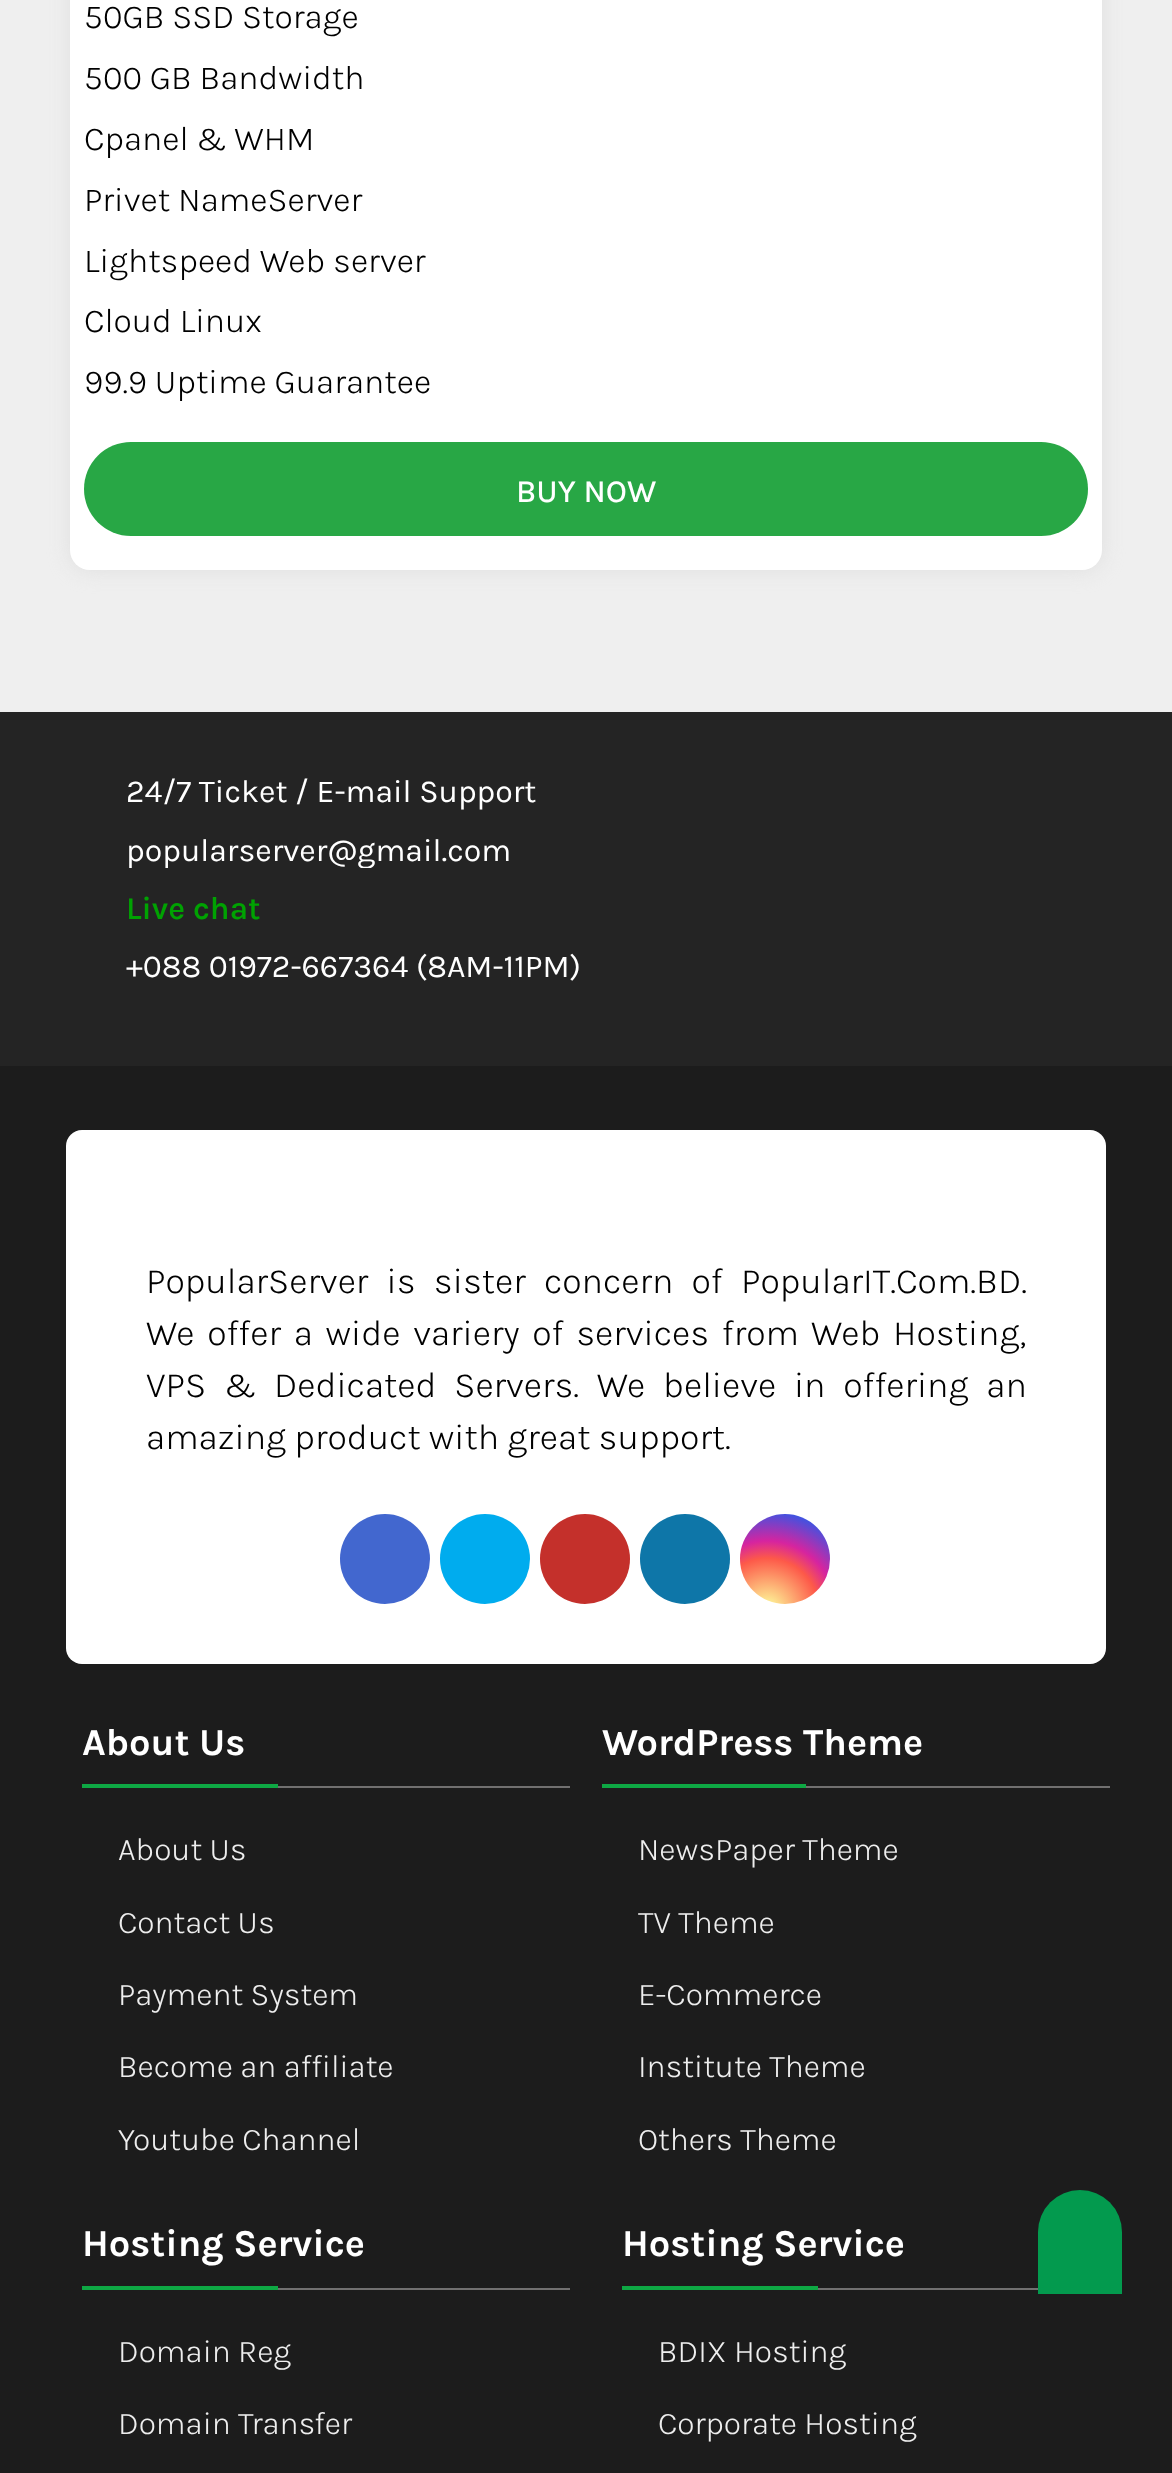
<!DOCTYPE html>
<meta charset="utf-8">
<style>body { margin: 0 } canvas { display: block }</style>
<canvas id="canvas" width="1172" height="2473"></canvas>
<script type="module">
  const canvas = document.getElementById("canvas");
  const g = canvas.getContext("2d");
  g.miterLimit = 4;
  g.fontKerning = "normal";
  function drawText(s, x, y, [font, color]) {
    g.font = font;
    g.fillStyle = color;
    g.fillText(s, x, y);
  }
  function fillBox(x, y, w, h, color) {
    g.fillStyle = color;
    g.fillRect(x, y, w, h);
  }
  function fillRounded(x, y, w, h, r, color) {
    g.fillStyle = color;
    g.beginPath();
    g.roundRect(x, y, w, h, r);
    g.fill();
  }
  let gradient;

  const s1 = ["300 34px Karla", "#000000"];
  const s2 = ["500 32px Karla", "#FFFFFF"];
  const s3 = ["32px Karla", "#FFFFFF"];
  const s4 = ["600 32px Karla", "#00A202"];
  const s5 = ["300 36px Karla", "#000000"];
  const s6 = ["bold 38px Karla", "#FFFFFF"];
  const s7 = ["300 32px Karla", "#EEEEEE"];

  fillBox(0, 0, 1172, 2473, "#EFEFEF");
  g.fillStyle = "rgba(221, 221, 221, 0.87)";
  g.filter = "blur(10px)";
  g.beginPath();
  g.roundRect(70, -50, 1032, 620, 20);
  g.fill();
  g.filter = "none";
  fillRounded(70, -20, 1032, 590, 20, "#FFFFFF");
  drawText("50GB SSD Storage", 84, 28, s1);
  drawText("500 GB Bandwidth", 84, 89, s1);
  drawText("Cpanel & WHM", 84, 150, s1);
  drawText("Privet NameServer", 84, 211, s1);
  drawText("Lightspeed Web server", 84, 272, s1);
  drawText("Cloud Linux", 84, 332, s1);
  drawText("99.9 Uptime Guarantee", 84, 393, s1);
  fillRounded(84, 442, 1004, 94, 47, "#28A745");
  drawText("BUY NOW", 516, 502, s2);
  fillBox(0, 712, 1172, 354, "#242424");
  drawText("24/7 Ticket / E-mail Support", 126, 802, s3);
  g.save();
  g.beginPath();
  g.rect(70, 830, 1032, 38);
  g.clip();
  drawText("popularserver@gmail.com", 126, 861, s3);
  g.restore();
  drawText("Live chat", 126, 919, s4);
  drawText("+088 01972-667364 (8AM-11PM)", 126, 977, s3);
  fillBox(0, 1066, 1172, 1407, "#1C1C1C");
  fillRounded(66, 1130, 1040, 534, 16, "#FFFFFF");
  g.wordSpacing = "10px";
  drawText("PopularServer is sister concern of PopularIT.Com.BD.", 146, 1293, s5);
  g.wordSpacing = "4.5px";
  drawText("We offer a wide variery of services from", 146, 1345, s5);
  drawText("Web Hosting,", 811, 1345, s5);
  g.wordSpacing = "9.5px";
  drawText("VPS &", 146, 1397, s5);
  drawText("Dedicated Servers. We believe in offering an", 274, 1397, s5);
  g.wordSpacing = "0px";
  drawText("amazing product with great support.", 146, 1449, s5);
  g.fillStyle = "#4267CF";
  g.beginPath();
  g.arc(385, 1559, 45, 0, Math.PI * 2);
  g.fill();
  g.fillStyle = "#00ACEE";
  g.beginPath();
  g.arc(485, 1559, 45, 0, Math.PI * 2);
  g.fill();
  g.fillStyle = "#C4302B";
  g.beginPath();
  g.arc(585, 1559, 45, 0, Math.PI * 2);
  g.fill();
  g.fillStyle = "#0E76A8";
  g.beginPath();
  g.arc(685, 1559, 45, 0, Math.PI * 2);
  g.fill();
  gradient = g.createRadialGradient(767, 1610, 0, 767, 1610, 115);
  gradient.addColorStop(0, "#FDF497");
  gradient.addColorStop(0.05, "#FDF497");
  gradient.addColorStop(0.45, "#FD5949");
  gradient.addColorStop(0.6, "#D6249F");
  gradient.addColorStop(0.9, "#285AEB");
  g.fillStyle = gradient;
  g.beginPath();
  g.arc(785, 1559, 45, 0, Math.PI * 2);
  g.fill();
  fillBox(278, 1786, 292, 2, "#717070");
  drawText("About Us", 82, 1755, s6);
  fillBox(82, 1784, 196, 4, "#0EA844");
  drawText("About Us", 118, 1860, s7);
  drawText("Contact Us", 118, 1933, s7);
  drawText("Payment System", 118, 2005, s7);
  drawText("Become an affiliate", 118, 2077, s7);
  drawText("Youtube Channel", 118, 2150, s7);
  fillBox(806, 1786, 304, 2, "#717070");
  drawText("WordPress Theme", 602, 1755, s6);
  fillBox(602, 1784, 204, 4, "#0EA844");
  drawText("NewsPaper Theme", 638, 1860, s7);
  drawText("TV Theme", 638, 1933, s7);
  drawText("E-Commerce", 638, 2005, s7);
  drawText("Institute Theme", 638, 2077, s7);
  drawText("Others Theme", 638, 2150, s7);
  fillBox(278, 2288, 292, 2, "#717070");
  drawText("Hosting Service", 82, 2256, s6);
  fillBox(82, 2286, 196, 4, "#0EA844");
  drawText("Domain Reg", 118, 2362, s7);
  drawText("Domain Transfer", 118, 2434, s7);
  fillBox(818, 2288, 220, 2, "#717070");
  drawText("Hosting Service", 622, 2256, s6);
  fillBox(622, 2286, 196, 4, "#0EA844");
  drawText("BDIX Hosting", 658, 2362, s7);
  drawText("Corporate Hosting", 658, 2434, s7);
  g.fillStyle = "#039A4E";
  g.beginPath();
  g.roundRect(1038, 2190, 84, 104, [42, 42, 0, 0]);
  g.fill();
</script>
